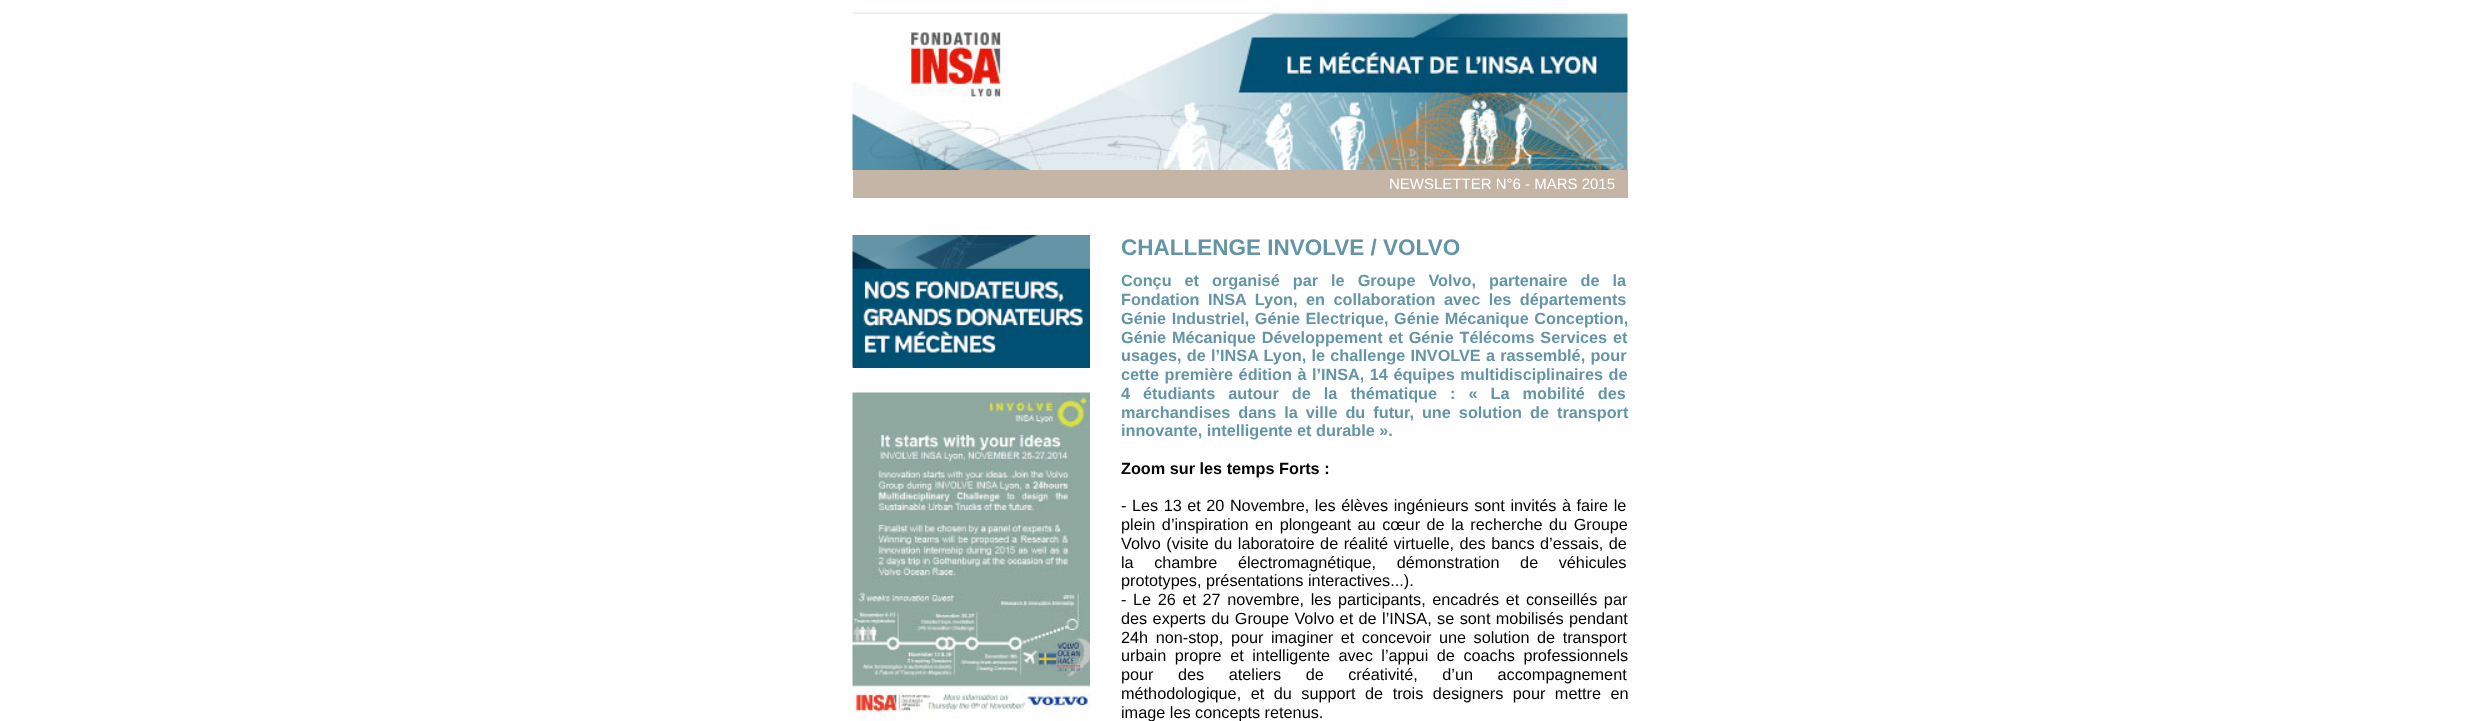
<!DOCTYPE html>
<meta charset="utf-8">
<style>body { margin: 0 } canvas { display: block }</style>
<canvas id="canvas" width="2479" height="721"></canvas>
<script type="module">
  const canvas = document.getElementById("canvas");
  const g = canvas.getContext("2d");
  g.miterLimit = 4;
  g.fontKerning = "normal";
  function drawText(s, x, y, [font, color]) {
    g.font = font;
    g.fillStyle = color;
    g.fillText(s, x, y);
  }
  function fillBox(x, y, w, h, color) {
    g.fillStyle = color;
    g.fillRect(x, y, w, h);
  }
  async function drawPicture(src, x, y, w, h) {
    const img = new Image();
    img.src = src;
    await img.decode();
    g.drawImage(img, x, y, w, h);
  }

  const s1 = ["15px Liberation Sans", "#FFFFFF"];
  const s2 = ["bold 22.5px Liberation Sans", "#6495A7"];
  const s3 = ["bold 16.25px Liberation Sans", "#6495A7"];
  const s4 = ["bold 16.25px Liberation Sans", "#000000"];
  const s5 = ["16.25px Liberation Sans", "#000000"];

  fillBox(0, 0, 2479, 721, "#FFFFFF");
  await drawPicture("pic1.png", 852, 12, 776, 158);
  fillBox(853, 170, 775, 28, "#C5B5A6");
  drawText("NEWSLETTER N°6 - MARS 2015", 1389, 189, s1);
  fillBox(853, 367, 237, 1, "#005073");
  await drawPicture("pic2.png", 852, 235, 238, 133);
  await drawPicture("pic3.png", 852, 392, 238, 321);
  drawText("CHALLENGE INVOLVE / VOLVO", 1121, 255, s2);
  g.wordSpacing = "8.5px";
  drawText("Conçu et organisé par le Groupe Volvo, partenaire de la", 1121, 286, s3);
  g.wordSpacing = "4px";
  drawText("Fondation INSA Lyon, en collaboration avec les départements", 1121, 305, s3);
  g.wordSpacing = "1px";
  drawText("Génie Industriel, Génie Electrique, Génie Mécanique Conception,", 1121, 324, s3);
  g.wordSpacing = "1.25px";
  drawText("Génie Mécanique Développement et Génie Télécoms Services et", 1121, 343, s3);
  g.wordSpacing = "0.75px";
  drawText("usages, de l’INSA Lyon, le challenge INVOLVE a rassemblé, pour", 1121, 361, s3);
  g.wordSpacing = "1px";
  drawText("cette première édition à l’INSA, 14 équipes multidisciplinaires de", 1121, 380, s3);
  g.wordSpacing = "8.5px";
  drawText("4 étudiants autour de la thématique : « La mobilité des", 1121, 399, s3);
  g.wordSpacing = "3.5px";
  drawText("marchandises dans la ville du futur, une solution de transport", 1121, 418, s3);
  g.wordSpacing = "0px";
  drawText("innovante, intelligente et durable ».", 1121, 436, s3);
  drawText("Zoom sur les temps Forts :", 1121, 474, s4);
  g.wordSpacing = "1px";
  drawText("- Les 13 et 20 Novembre, les élèves ingénieurs sont invités à faire le", 1121, 511, s5);
  g.wordSpacing = "2px";
  drawText("plein d’inspiration en plongeant au cœur de la recherche du Groupe", 1121, 530, s5);
  g.wordSpacing = "1px";
  drawText("Volvo (visite du laboratoire de réalité virtuelle, des bancs d’essais, de", 1121, 549, s5);
  g.wordSpacing = "16px";
  drawText("la chambre électromagnétique, démonstration de véhicules", 1121, 568, s5);
  g.wordSpacing = "0px";
  drawText("prototypes, présentations interactives...).", 1121, 586, s5);
  g.wordSpacing = "2.1px";
  drawText("- Le 26 et 27 novembre, les participants, encadrés et conseillés par", 1121, 605, s5);
  g.wordSpacing = "0.9px";
  drawText("des experts du Groupe Volvo et de l’INSA, se sont mobilisés pendant", 1121, 624, s5);
  g.wordSpacing = "3px";
  drawText("24h non-stop, pour imaginer et concevoir une solution de transport", 1121, 643, s5);
  g.wordSpacing = "4px";
  drawText("urbain propre et intelligente avec l’appui de coachs professionnels", 1121, 661, s5);
  g.wordSpacing = "20px";
  drawText("pour des ateliers de créativité, d’un accompagnement", 1121, 680, s5);
  g.wordSpacing = "5px";
  drawText("méthodologique, et du support de trois designers pour mettre en", 1121, 699, s5);
  g.wordSpacing = "0px";
  drawText("image les concepts retenus.", 1121, 718, s5);
</script>
